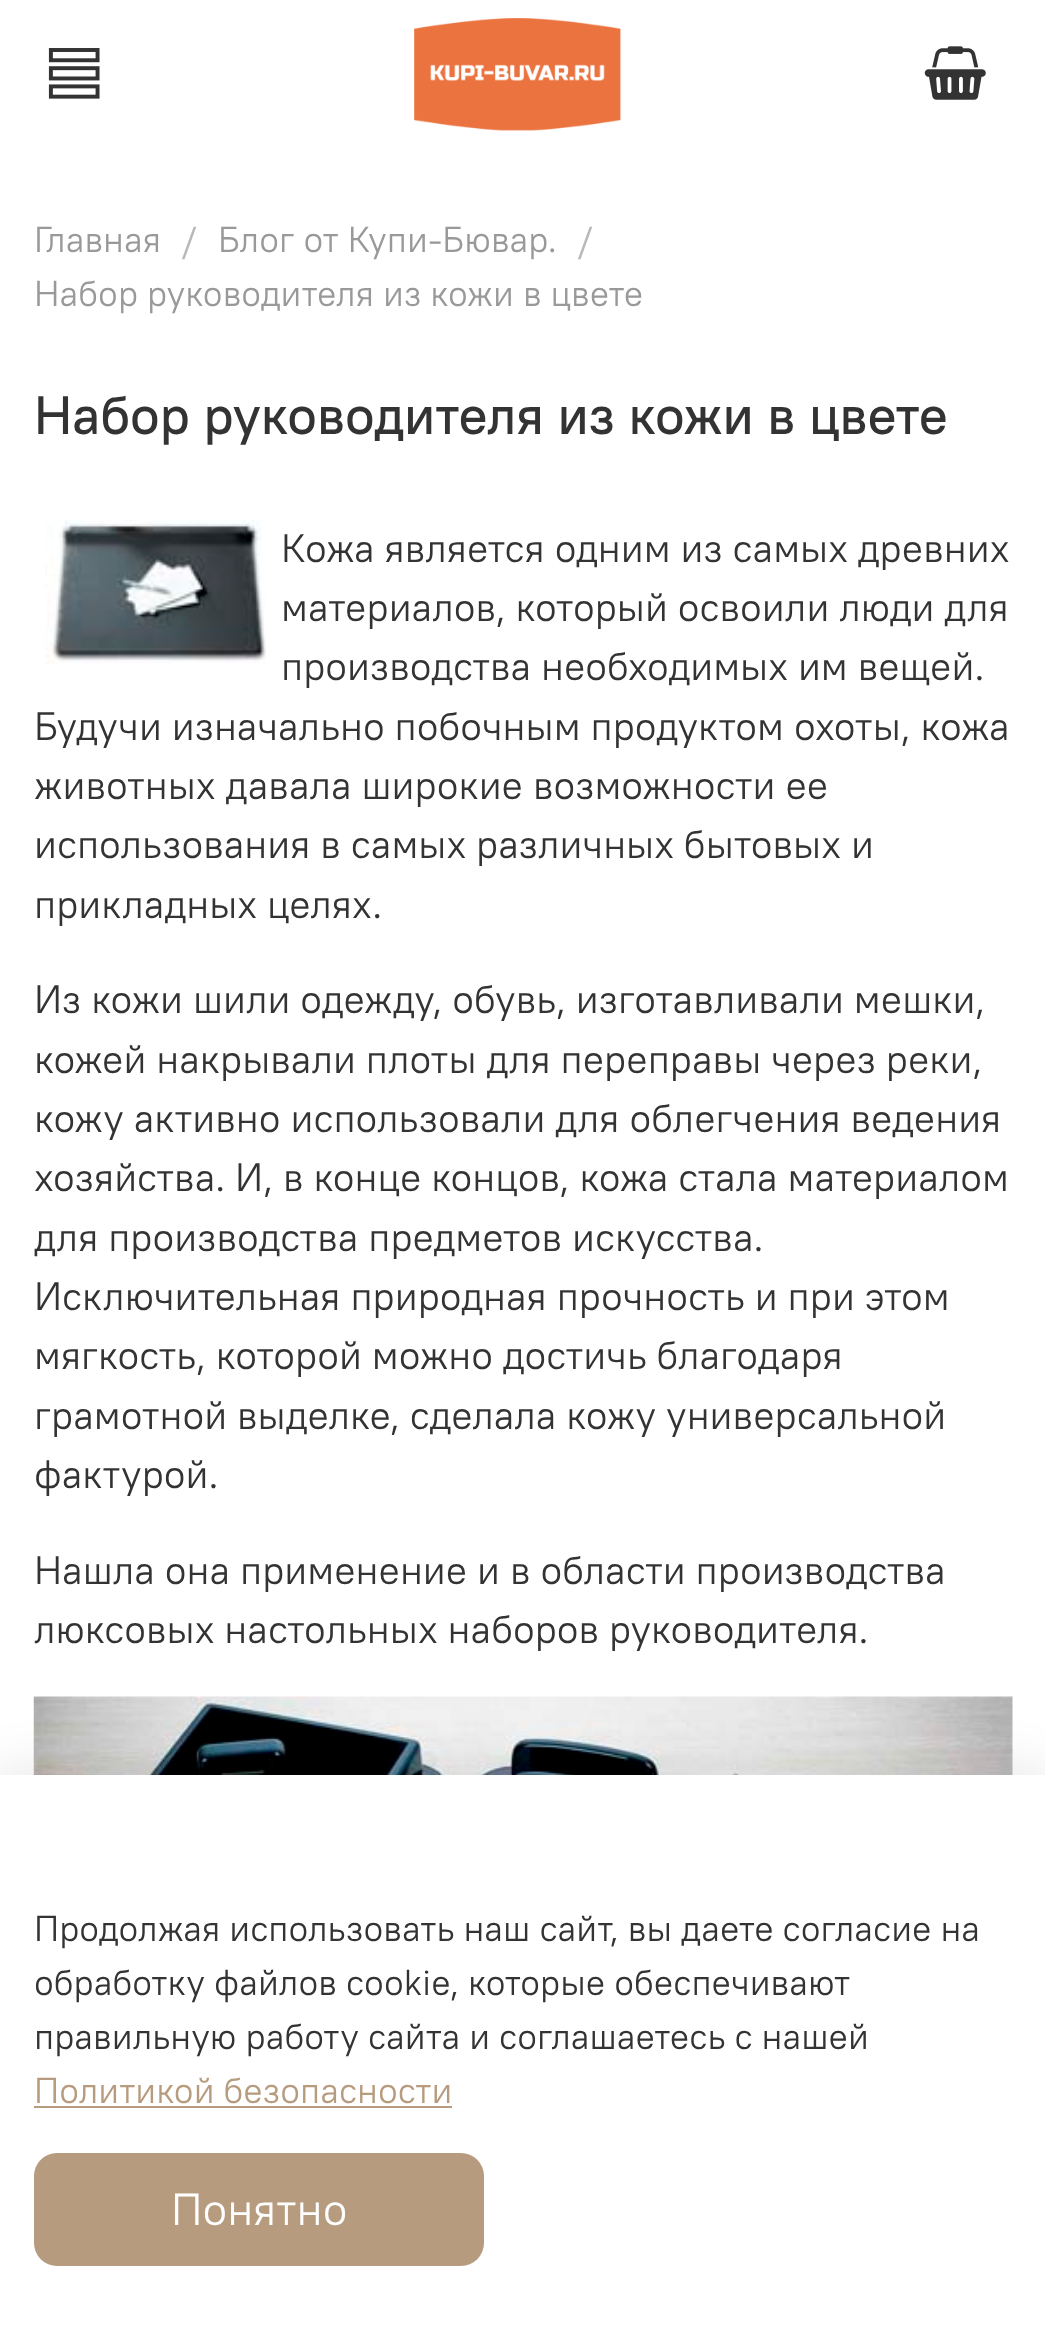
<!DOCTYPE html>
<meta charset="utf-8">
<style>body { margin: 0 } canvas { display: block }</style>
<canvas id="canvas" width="1045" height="2349"></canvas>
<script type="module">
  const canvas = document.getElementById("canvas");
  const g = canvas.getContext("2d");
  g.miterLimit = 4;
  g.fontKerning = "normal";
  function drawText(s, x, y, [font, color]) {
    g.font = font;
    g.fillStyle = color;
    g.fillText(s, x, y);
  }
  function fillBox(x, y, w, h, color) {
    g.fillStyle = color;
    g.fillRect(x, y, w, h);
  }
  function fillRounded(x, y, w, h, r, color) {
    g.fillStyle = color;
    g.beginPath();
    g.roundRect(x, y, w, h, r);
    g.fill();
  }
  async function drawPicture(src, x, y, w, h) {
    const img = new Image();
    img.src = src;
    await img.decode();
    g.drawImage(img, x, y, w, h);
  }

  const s1 = ["36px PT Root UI", "#999999"];
  const s2 = ["36px PT Root UI", "#B8B8B8"];
  const s3 = ["500 54px PT Root UI", "#333333"];
  const s4 = ["39.6px PT Root UI", "#333333"];
  const s5 = ["36px PT Root UI", "#333333"];
  const s6 = ["36px PT Root UI", "#B79B7E"];
  const s7 = ["45px PT Root UI", "#FFFFFF"];

  fillBox(0, 0, 1045, 2349, "#FFFFFF");
  await drawPicture("pic1.png", 48, 48, 52, 51);
  await drawPicture("pic2.png", 414, 18, 207, 113);
  await drawPicture("pic3.png", 924, 46, 62, 54);
  drawText("Главная", 34, 252, s1);
  drawText("/", 181, 252, s2);
  drawText("Блог от Купи-Бювар.", 218, 252, s1);
  drawText("/", 577, 252, s2);
  drawText("Набор руководителя из кожи в цвете", 34, 306, s1);
  drawText("Набор руководителя из кожи в цвете", 34, 434, s3);
  await drawPicture("pic4.png", 45, 520, 221, 144);
  drawText("Кожа является одним из самых древних", 281, 562, s4);
  drawText("материалов, который освоили люди для", 281, 621, s4);
  drawText("производства необходимых им вещей.", 281, 680, s4);
  drawText("Будучи изначально побочным продуктом охоты, кожа", 34, 740, s4);
  drawText("животных давала широкие возможности ее", 34, 799, s4);
  drawText("использования в самых различных бытовых и", 34, 858, s4);
  drawText("прикладных целях.", 34, 918, s4);
  drawText("Из кожи шили одежду, обувь, изготавливали мешки,", 34, 1013, s4);
  drawText("кожей накрывали плоты для переправы через реки,", 34, 1073, s4);
  drawText("кожу активно использовали для облегчения ведения", 34, 1132, s4);
  drawText("хозяйства. И, в конце концов, кожа стала материалом", 34, 1191, s4);
  drawText("для производства предметов искусства.", 34, 1251, s4);
  drawText("Исключительная природная прочность и при этом", 34, 1310, s4);
  drawText("мягкость, которой можно достичь благодаря", 34, 1369, s4);
  drawText("грамотной выделке, сделала кожу универсальной", 34, 1429, s4);
  drawText("фактурой.", 34, 1488, s4);
  drawText("Нашла она применение и в области производства", 34, 1584, s4);
  drawText("люксовых настольных наборов руководителя.", 34, 1643, s4);
  await drawPicture("pic5.png", 33, 1696, 980, 79);
  g.fillStyle = "rgba(0, 0, 0, 0.09)";
  g.filter = "blur(26px)";
  g.beginPath();
  g.rect(-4, 1769, 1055, 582);
  g.fill();
  g.filter = "none";
  fillBox(0, 1775, 1045, 574, "#FFFFFF");
  drawText("Продолжая использовать наш сайт, вы даете согласие на", 34, 1941, s5);
  drawText("обработку файлов cookie, которые обеспечивают", 34, 1995, s5);
  drawText("правильную работу сайта и соглашаетесь с нашей", 34, 2049, s5);
  drawText("Политикой безопасности", 34, 2103, s6);
  fillBox(34, 2106, 418, 2, "#B79B7E");
  fillRounded(34, 2153, 450, 113, 23, "#B79B7E");
  drawText("Понятно", 171, 2225, s7);
</script>
